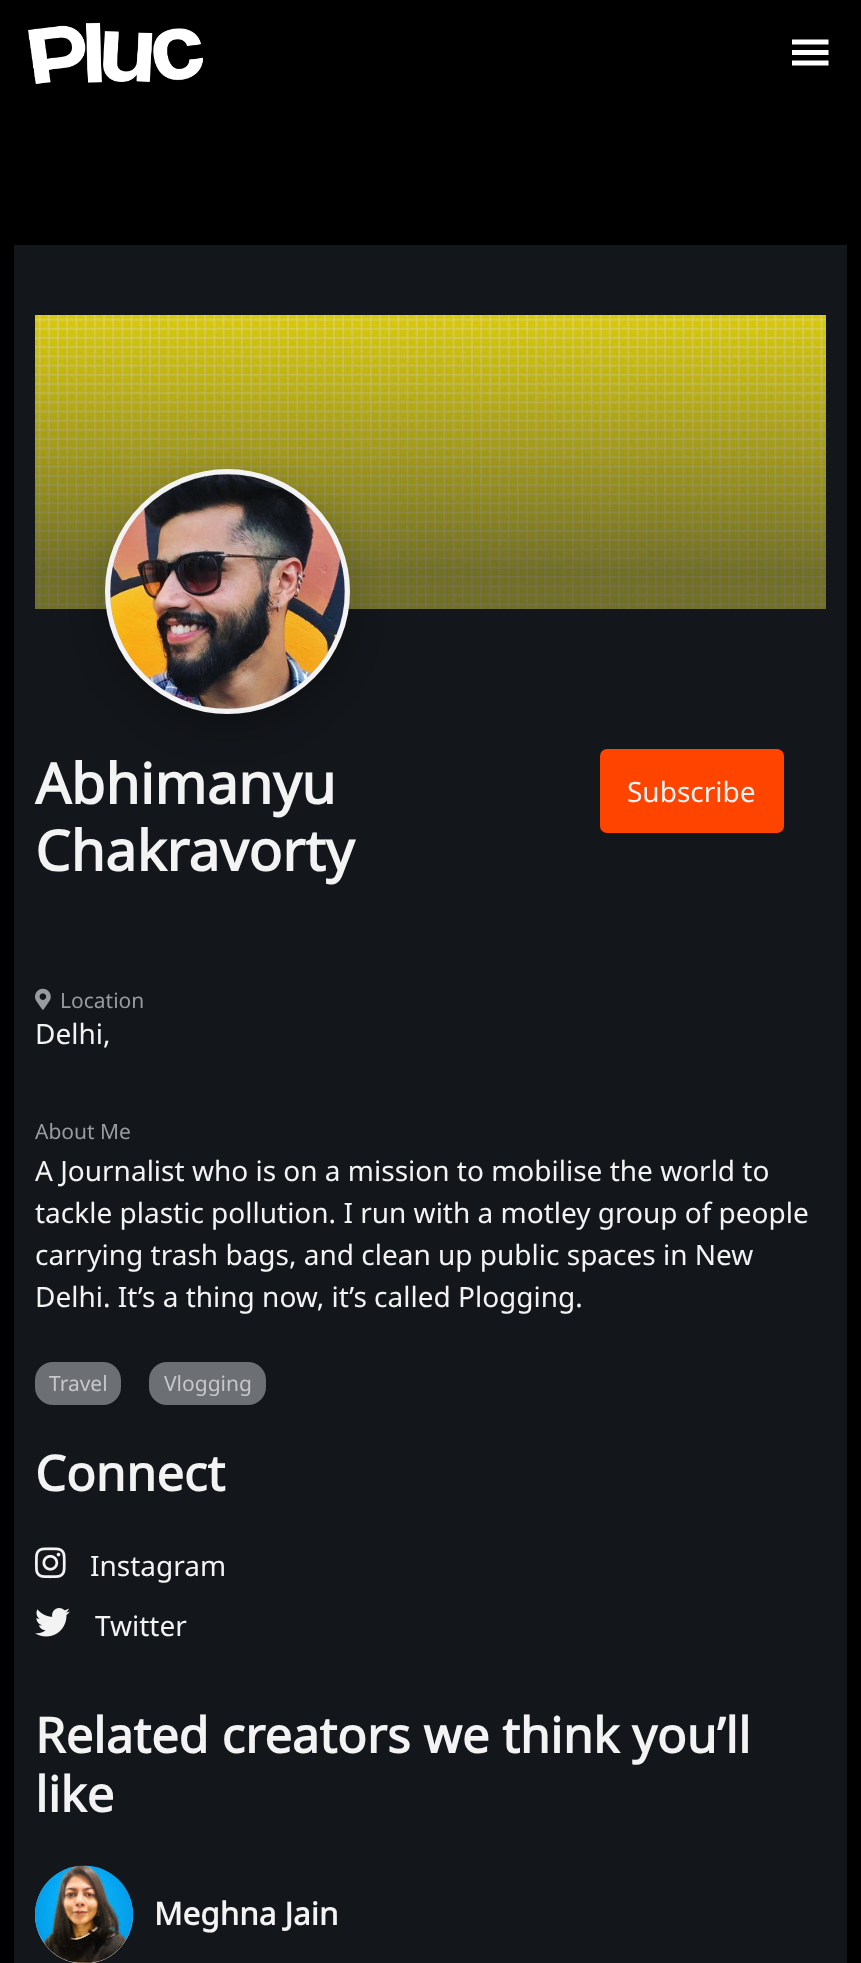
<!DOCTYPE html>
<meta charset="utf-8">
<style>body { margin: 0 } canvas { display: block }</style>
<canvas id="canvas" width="861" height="1963"></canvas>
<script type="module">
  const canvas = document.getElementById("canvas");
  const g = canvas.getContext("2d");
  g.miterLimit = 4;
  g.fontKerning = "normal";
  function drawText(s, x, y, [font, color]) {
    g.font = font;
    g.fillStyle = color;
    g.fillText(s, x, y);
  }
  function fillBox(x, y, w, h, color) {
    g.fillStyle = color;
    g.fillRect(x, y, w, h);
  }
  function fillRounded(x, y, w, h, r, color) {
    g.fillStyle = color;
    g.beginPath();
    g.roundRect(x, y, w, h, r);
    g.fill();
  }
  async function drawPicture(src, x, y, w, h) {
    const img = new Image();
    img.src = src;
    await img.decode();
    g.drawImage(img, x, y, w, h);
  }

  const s1 = ["bold 56px Noto Sans", "#F3F3F3"];
  const s2 = ["28px Noto Sans", "#F3F3F3"];
  const s3 = ["21px Noto Sans", "#999C9F"];
  const s4 = ["21px Noto Sans", "#C6C7C9"];
  const s5 = ["bold 49px Noto Sans", "#F3F3F3"];
  const s6 = ["bold 31.5px Noto Sans", "#F3F3F3"];

  fillBox(0, 0, 861, 1963, "#000000");
  await drawPicture("pic1.png", 28, 22, 175, 62);
  g.fillStyle = "#FFFFFF";
  g.beginPath();
  g.moveTo(792, 39.5);
  g.lineTo(792, 44.5);
  g.lineTo(828.5, 44.5);
  g.lineTo(828.5, 39.5);
  g.closePath();
  g.moveTo(792, 50);
  g.lineTo(792, 55);
  g.lineTo(828.5, 55);
  g.lineTo(828.5, 50);
  g.closePath();
  g.moveTo(792, 60.5);
  g.lineTo(792, 65.5);
  g.lineTo(828.5, 65.5);
  g.lineTo(828.5, 60.5);
  g.closePath();
  g.fill();
  fillBox(14, 245, 833, 1718, "#13161A");
  await drawPicture("pic2.png", 35, 315, 791, 294);
  g.fillStyle = "rgba(0, 0, 0, 0.2)";
  g.filter = "blur(17.5px)";
  g.beginPath();
  g.roundRect(105, 483, 245, 245, 122.5);
  g.fill();
  g.filter = "none";
  g.fillStyle = "#C4C4C4";
  g.beginPath();
  g.arc(227.5, 591.5, 120, 0, Math.PI * 2);
  g.fill();
  g.strokeStyle = "#F3F3F3";
  g.lineWidth = 5;
  g.stroke();
  await drawPicture("pic3.png", 110, 474, 235, 235);
  drawText("Abhimanyu", 35, 804, s1);
  drawText("Chakravorty", 35, 871, s1);
  fillRounded(600, 749, 184, 84, 7, "#FF4400");
  drawText("Subscribe", 627, 802, s2);
  await drawPicture("pic4.png", 35, 988, 16, 22);
  drawText("Location", 60, 1008, s3);
  drawText("Delhi,", 35, 1044, s2);
  drawText("About Me", 35, 1139, s3);
  drawText("A Journalist who is on a mission to mobilise the world to", 35, 1181, s2);
  drawText("tackle plastic pollution. I run with a motley group of people", 35, 1223, s2);
  drawText("carrying trash bags, and clean up public spaces in New", 35, 1265, s2);
  drawText("Delhi. It’s a thing now, it’s called Plogging.", 35, 1307, s2);
  fillRounded(35, 1362, 86, 43, 18, "#6C7075");
  drawText("Travel", 49, 1391, s4);
  fillRounded(149, 1362, 117, 43, 18, "#6C7075");
  drawText("Vlogging", 164, 1391, s4);
  drawText("Connect", 35, 1491, s5);
  await drawPicture("pic5.png", 35, 1547, 31, 32);
  drawText("Instagram", 90, 1576, s2);
  await drawPicture("pic6.png", 35, 1608, 35, 29);
  drawText("Twitter", 95, 1636, s2);
  drawText("Related creators we think you’ll", 35, 1753, s5);
  drawText("like", 35, 1812, s5);
  g.fillStyle = "#C4C4C4";
  g.beginPath();
  g.arc(84, 1915, 49, 0, Math.PI * 2);
  g.fill();
  await drawPicture("pic7.png", 35, 1865, 98, 98);
  drawText("Meghna Jain", 154, 1925, s6);
</script>
